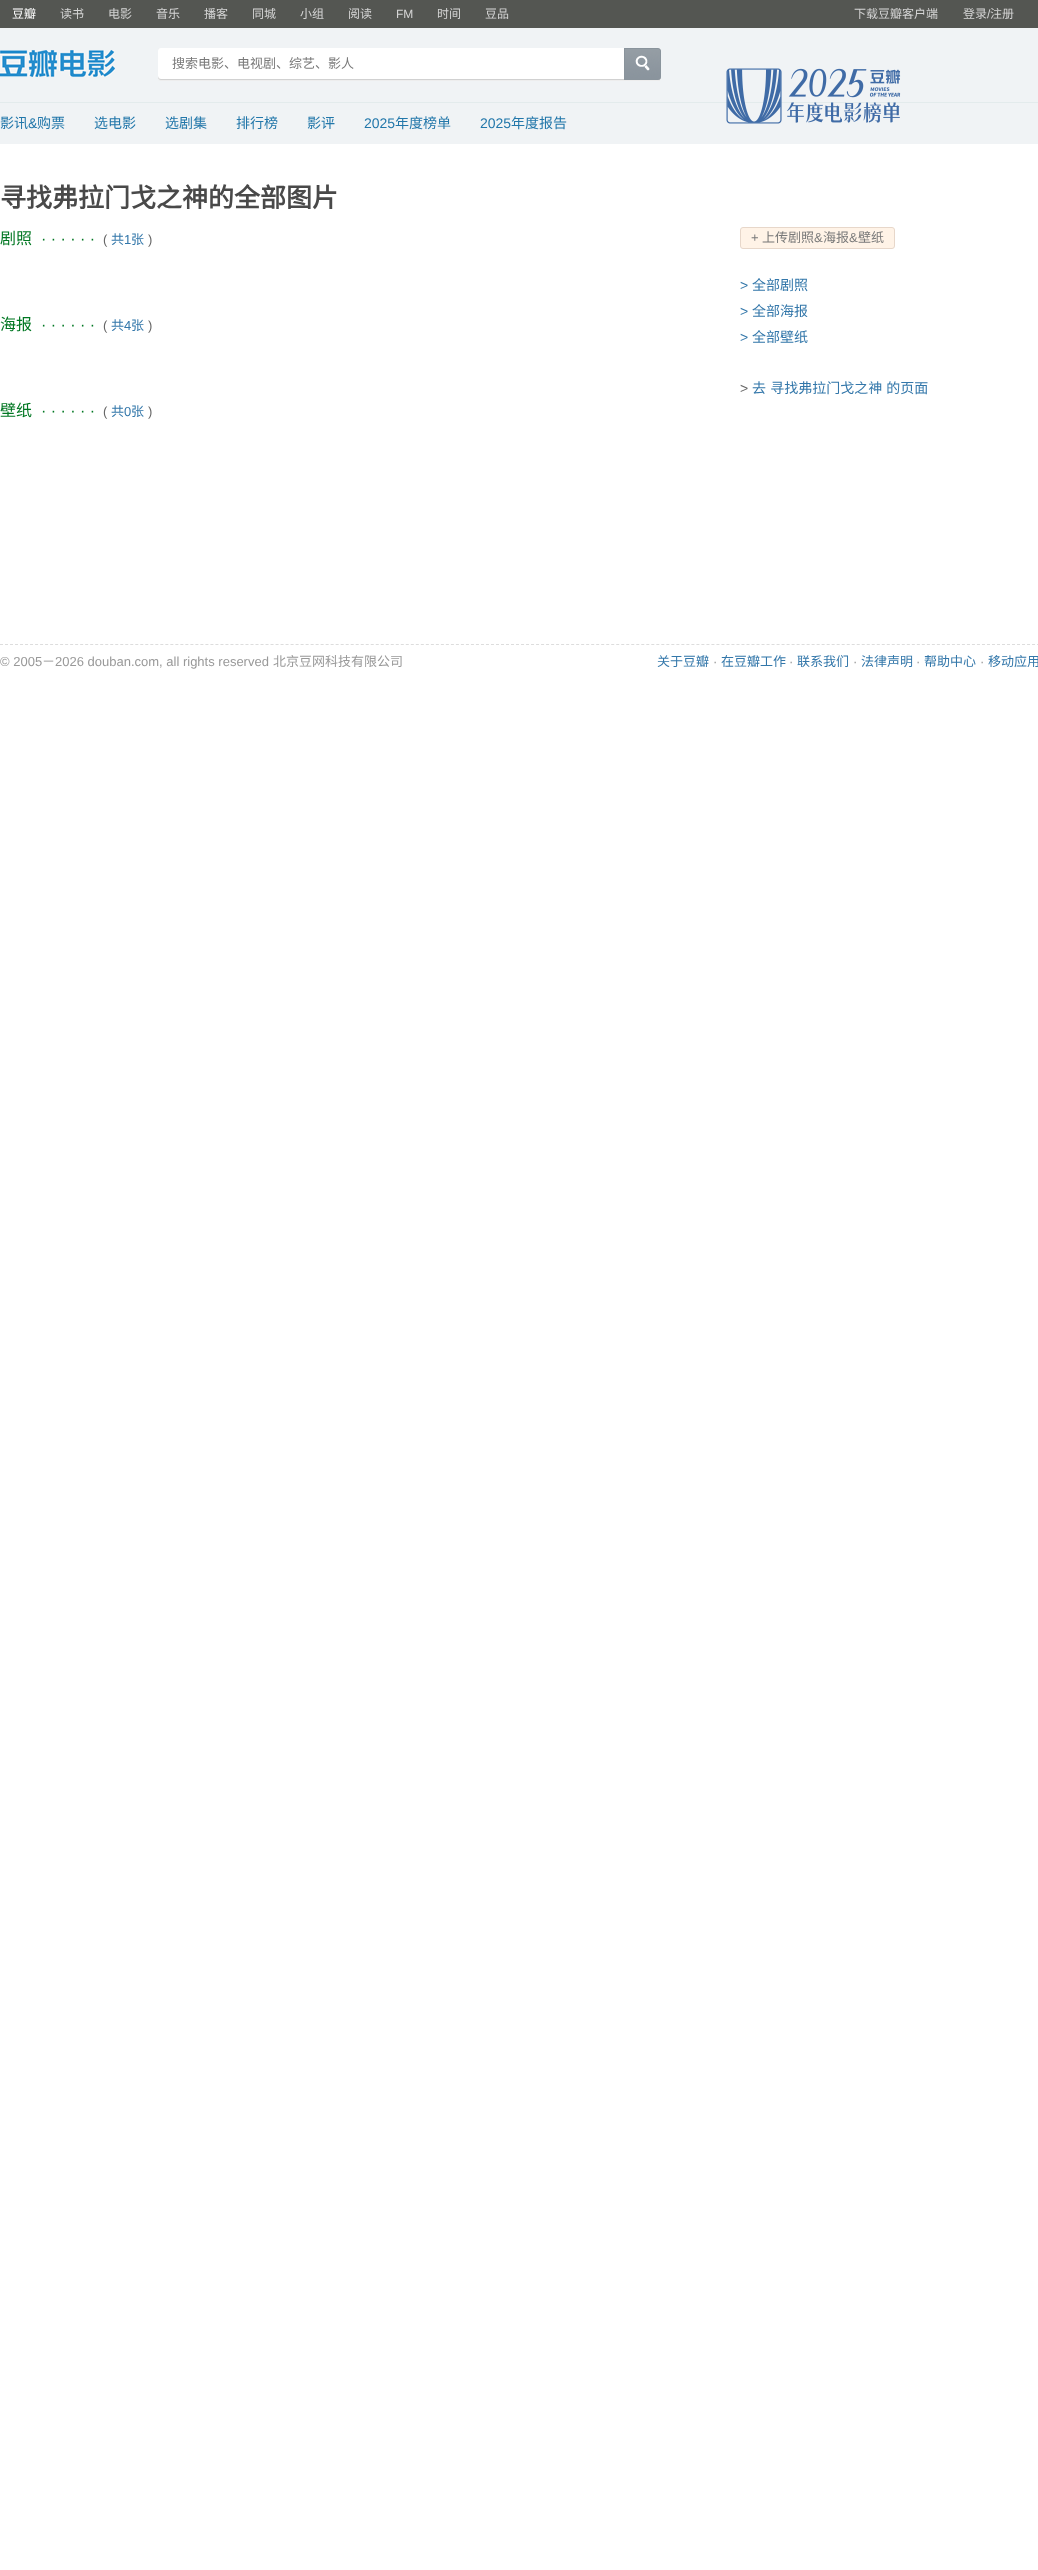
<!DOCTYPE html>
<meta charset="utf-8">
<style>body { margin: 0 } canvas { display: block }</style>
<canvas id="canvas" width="1038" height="2570"></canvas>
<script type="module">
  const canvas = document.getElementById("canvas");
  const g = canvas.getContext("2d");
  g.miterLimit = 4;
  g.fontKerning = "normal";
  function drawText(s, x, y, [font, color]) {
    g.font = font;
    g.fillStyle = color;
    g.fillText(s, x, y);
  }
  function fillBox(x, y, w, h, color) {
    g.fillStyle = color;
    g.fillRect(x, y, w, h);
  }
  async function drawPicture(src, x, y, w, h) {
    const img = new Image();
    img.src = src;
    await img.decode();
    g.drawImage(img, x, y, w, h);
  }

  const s1 = ["12px Noto Sans CJK SC", "#FFFFFF"];
  const s2 = ["12px Noto Sans CJK SC", "#D5D5D5"];
  const s3 = ["12px Liberation Sans", "#D5D5D5"];
  const s4 = ["13px Noto Sans CJK SC", "#797979"];
  const s5 = ["14px Noto Sans CJK SC", "#2277AA"];
  const s6 = ["14px Liberation Sans", "#2277AA"];
  const s7 = ["bold 26px Noto Sans CJK SC", "#494949"];
  const s8 = ["16px Noto Sans CJK SC", "#007722"];
  const s9 = ["16px Liberation Sans", "#007722"];
  const s10 = ["13px Liberation Sans", "#666666"];
  const s11 = ["13px Noto Sans CJK SC", "#3377AA"];
  const s12 = ["13px Liberation Sans", "#3377AA"];
  const s13 = ["13px Liberation Sans", "#797979"];
  const s14 = ["14px Liberation Sans", "#3377AA"];
  const s15 = ["14px Noto Sans CJK SC", "#3377AA"];
  const s16 = ["14px Liberation Sans", "#666666"];
  const s17 = ["13px Liberation Sans", "#999999"];
  const s18 = ["13px Noto Sans CJK SC", "#999999"];

  fillBox(0, 0, 1038, 2570, "#FFFFFF");
  fillBox(0, 0, 1038, 28, "#545652");
  drawText("豆瓣", 12, 18, s1);
  drawText("读书", 60, 18, s2);
  drawText("电影", 108, 18, s2);
  drawText("音乐", 156, 18, s2);
  drawText("播客", 204, 18, s2);
  drawText("同城", 252, 18, s2);
  drawText("小组", 300, 18, s2);
  drawText("阅读", 348, 18, s2);
  drawText("FM", 396, 18, s3);
  drawText("时间", 437, 18, s2);
  drawText("豆品", 485, 18, s2);
  drawText("下载豆瓣客户端", 854, 18, s2);
  drawText("登录", 963, 18, s2);
  drawText("/", 987, 18, s3);
  drawText("注册", 990, 18, s2);
  fillBox(0, 28, 1038, 116, "#F0F3F5");
  fillBox(0, 102, 1038, 1, "#E3EBEC");
  await drawPicture("pic1.png", 0, 50, 115, 27);
  await drawPicture("pic2.png", 158, 48, 466, 33);
  drawText("搜索电影、电视剧、综艺、影人", 172, 68, s4);
  await drawPicture("pic3.png", 624, 48, 37, 33);
  drawText("影讯", 0, 128, s5);
  drawText("&", 28, 128, s6);
  drawText("购票", 37, 128, s5);
  drawText("选电影", 94, 128, s5);
  drawText("选剧集", 165, 128, s5);
  drawText("排行榜", 236, 128, s5);
  drawText("影评", 307, 128, s5);
  drawText("2025", 364, 128, s6);
  drawText("年度榜单", 395, 128, s5);
  drawText("2025", 480, 128, s6);
  drawText("年度报告", 511, 128, s5);
  await drawPicture("pic4.png", 726, 68, 175, 56);
  drawText("寻找弗拉门戈之神的全部图片", 0, 207, s7);
  drawText("剧照", 0, 244, s8);
  drawText("· · · · · ·", 41, 244, s9);
  drawText("(", 103, 244, s10);
  drawText("共", 111, 244, s11);
  drawText("1", 124, 244, s12);
  drawText("张", 131, 244, s11);
  drawText(")", 148, 244, s10);
  drawText("海报", 0, 330, s8);
  drawText("· · · · · ·", 41, 330, s9);
  drawText("(", 103, 330, s10);
  drawText("共", 111, 330, s11);
  drawText("4", 124, 330, s12);
  drawText("张", 131, 330, s11);
  drawText(")", 148, 330, s10);
  drawText("壁纸", 0, 416, s8);
  drawText("· · · · · ·", 41, 416, s9);
  drawText("(", 103, 416, s10);
  drawText("共", 111, 416, s11);
  drawText("0", 124, 416, s12);
  drawText("张", 131, 416, s11);
  drawText(")", 148, 416, s10);
  g.fillStyle = "#FFF3E7";
  g.beginPath();
  g.roundRect(740.5, 227.5, 154, 21, 2.5);
  g.fill();
  g.strokeStyle = "#E7D7CA";
  g.stroke();
  drawText("+", 751, 242, s13);
  drawText("上传剧照", 762, 242, s4);
  drawText("&", 814, 242, s13);
  drawText("海报", 823, 242, s4);
  drawText("&", 849, 242, s13);
  drawText("壁纸", 858, 242, s4);
  drawText(">", 740, 290, s14);
  drawText("全部剧照", 752, 290, s15);
  drawText(">", 740, 316, s14);
  drawText("全部海报", 752, 316, s15);
  drawText(">", 740, 342, s14);
  drawText("全部壁纸", 752, 342, s15);
  drawText(">", 740, 393, s16);
  g.wordSpacing = "1px";
  drawText("去 寻找弗拉门戈之神 的页面", 752, 393, s15);
  g.beginPath();
  g.moveTo(0, 644.5);
  g.lineTo(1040, 644.5);
  g.strokeStyle = "#DDDDDD";
  g.setLineDash([3, 2.01]);
  g.stroke();
  g.wordSpacing = "0px";
  drawText("© 2005", 0, 666, s17);
  drawText("－", 42, 666, s18);
  drawText("2026 douban.com, all rights reserved", 55, 666, s17);
  drawText("北京豆网科技有限公司", 273, 666, s18);
  drawText("关于豆瓣", 657, 666, s11);
  drawText("·", 713, 666, s17);
  drawText("在豆瓣工作", 721, 666, s11);
  drawText("·", 789, 666, s17);
  drawText("联系我们", 797, 666, s11);
  drawText("·", 853, 666, s17);
  drawText("法律声明", 861, 666, s11);
  drawText("·", 916, 666, s17);
  drawText("帮助中心", 924, 666, s11);
  drawText("·", 980, 666, s17);
  drawText("移动应用", 988, 666, s11);
</script>
